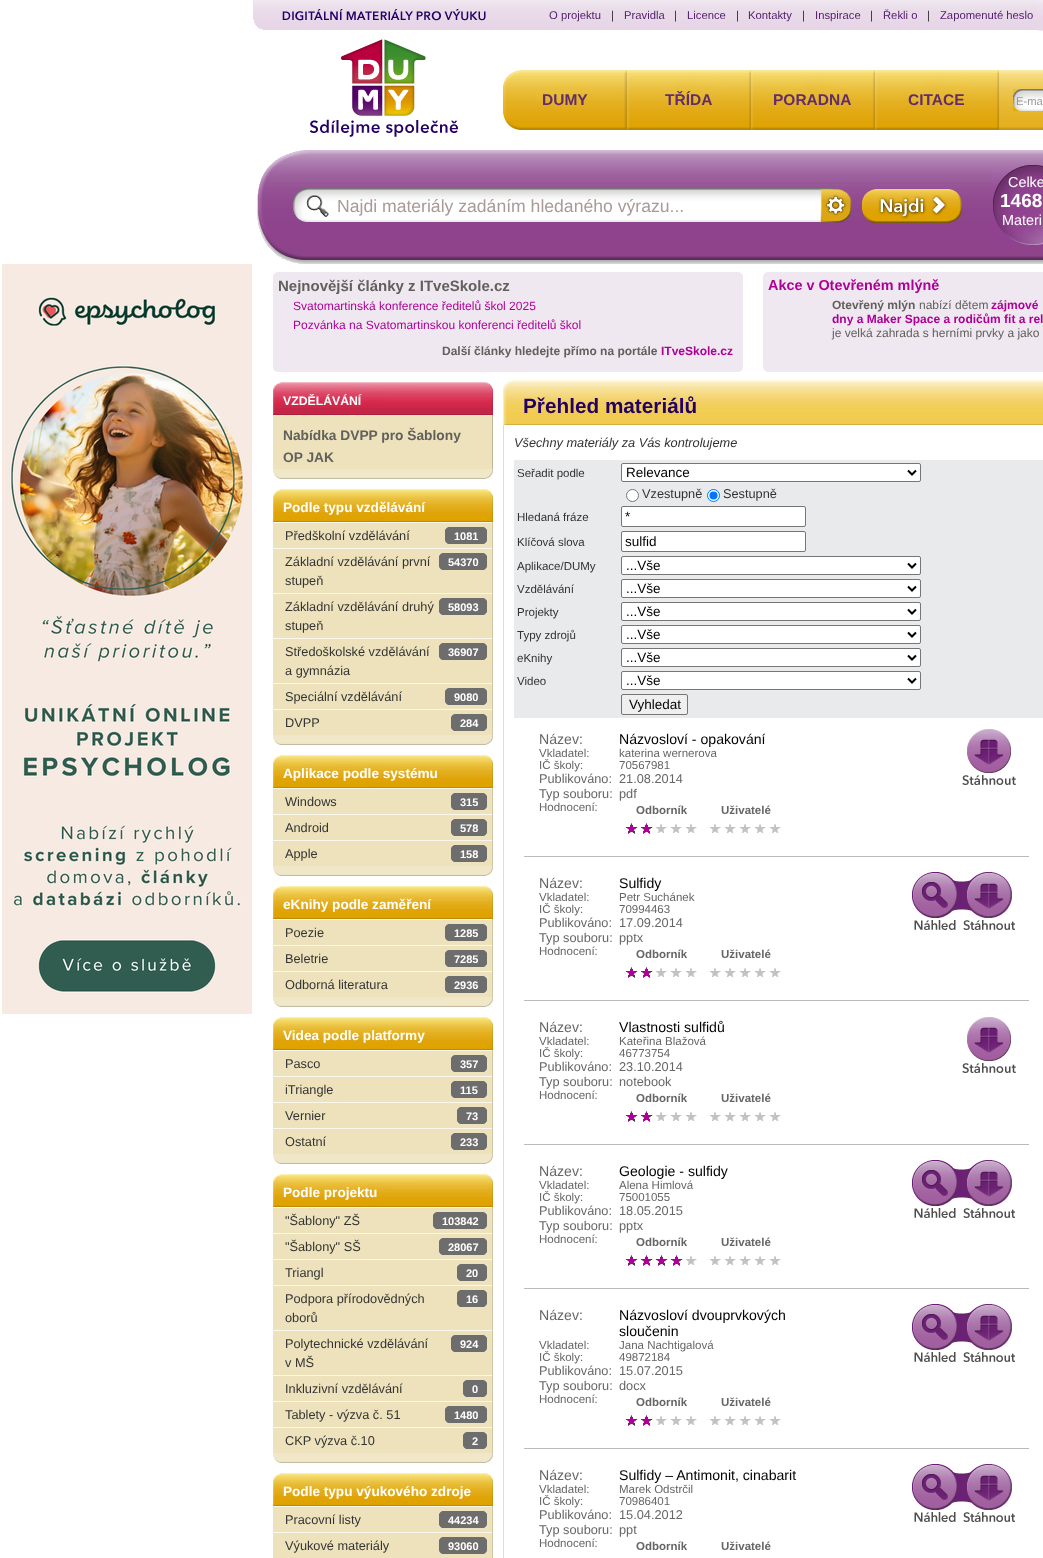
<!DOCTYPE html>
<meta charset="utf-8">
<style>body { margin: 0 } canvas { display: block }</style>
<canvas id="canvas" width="1043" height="1558"></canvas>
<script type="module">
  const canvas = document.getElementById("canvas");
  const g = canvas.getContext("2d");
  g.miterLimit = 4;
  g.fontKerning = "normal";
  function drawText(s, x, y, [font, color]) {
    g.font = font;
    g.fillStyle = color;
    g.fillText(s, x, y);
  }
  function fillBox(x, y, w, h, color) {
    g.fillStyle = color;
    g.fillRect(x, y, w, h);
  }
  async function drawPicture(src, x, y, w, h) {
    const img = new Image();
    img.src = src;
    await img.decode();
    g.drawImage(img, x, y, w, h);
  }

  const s1 = ["11.25px Liberation Sans", "#53206D"];
  const s2 = ["11.25px Liberation Sans", "#333333"];
  const s3 = ["bold 15.5px Liberation Sans", "#622E69"];
  const s4 = ["11.25px Liberation Sans", "#999999"];
  const s5 = ["17.6px Liberation Sans", "#AA9999"];
  const s6 = ["14.4px Liberation Sans", "#FFFFFF"];
  const s7 = ["bold 19px Liberation Sans", "#FFFFFF"];
  const s8 = ["bold 15px Liberation Sans", "#61605C"];
  const s9 = ["12px Liberation Sans", "#AD0097"];
  const s10 = ["bold 12px Liberation Sans", "#61605C"];
  const s11 = ["bold 12px Liberation Sans", "#AD0097"];
  const s12 = ["bold 14.4px Liberation Sans", "#AD0097"];
  const s13 = ["12px Liberation Sans", "#61605C"];
  const s14 = ["bold 12.25px Liberation Sans", "#FFFFFF"];
  const s15 = ["bold 13.75px Liberation Sans", "#61605C"];
  const s16 = ["bold 13.6px Liberation Sans", "#FFFFFF"];
  const s17 = ["12.75px Liberation Sans", "#333333"];
  const s18 = ["bold 11px Liberation Sans", "#FFFFFF"];
  const s19 = ["bold 20.75px Liberation Sans", "#240064"];
  const s20 = ["italic 12.75px Liberation Sans", "#333333"];
  const s21 = ["11.5px Liberation Sans", "#333333"];
  const s22 = ["13.5px Liberation Sans", "#000000"];
  const s23 = ["14.1px Liberation Sans", "#666666"];
  const s24 = ["14.1px Liberation Sans", "#000000"];
  const s25 = ["11.5px Liberation Sans", "#666666"];
  const s26 = ["12.75px Liberation Sans", "#666666"];
  const s27 = ["bold 11.5px Liberation Sans", "#666666"];

  fillBox(0, 0, 1043, 1558, "#FFFFFF");
  await drawPicture("pic1.png", 253, 0, 10, 30);
  await drawPicture("pic2.png", 263, 0, 774, 30);
  await drawPicture("pic3.png", 282, 9, 204, 12);
  drawText("O projektu", 549, 19, s1);
  drawText("|", 611, 19, s2);
  drawText("Pravidla", 624, 19, s1);
  drawText("|", 674, 19, s2);
  drawText("Licence", 687, 19, s1);
  drawText("|", 736, 19, s2);
  drawText("Kontakty", 748, 19, s1);
  drawText("|", 802, 19, s2);
  drawText("Inspirace", 815, 19, s1);
  drawText("|", 870, 19, s2);
  drawText("Řekli o", 883, 19, s1);
  drawText("|", 927, 19, s2);
  drawText("Zapomenuté heslo", 940, 19, s1);
  await drawPicture("pic4.png", 1037, 0, 6, 31);
  await drawPicture("pic5.png", 309, 39, 149, 98);
  await drawPicture("pic6.png", 503, 70, 124, 60);
  drawText("DUMY", 542, 105, s3);
  await drawPicture("pic7.png", 627, 70, 124, 60);
  drawText("TŘÍDA", 665, 105, s3);
  await drawPicture("pic7.png", 751, 70, 124, 60);
  drawText("PORADNA", 773, 105, s3);
  await drawPicture("pic7.png", 875, 70, 124, 60);
  drawText("CITACE", 908, 105, s3);
  await drawPicture("pic8.png", 999, 70, 44, 60);
  await drawPicture("pic9.png", 1013, 89, 30, 22);
  drawText("E-ma", 1016, 105, s4);
  await drawPicture("pic10.png", 257, 150, 78, 114);
  await drawPicture("pic11.png", 335, 150, 708, 114);
  await drawPicture("pic12.png", 335, 188, 485, 34);
  drawText("Najdi materiály zadáním hledaného výrazu...", 337, 212, s5);
  await drawPicture("pic13.png", 862, 189, 100, 34);
  await drawPicture("pic14.png", 820, 188, 32, 35);
  await drawPicture("pic15.png", 992, 165, 51, 80);
  drawText("Celke", 1008, 187, s6);
  drawText("1468", 1000, 207, s7);
  drawText("Materi", 1002, 225, s6);
  await drawPicture("pic16.png", 2, 264, 250, 750);
  await drawPicture("pic17.png", 273, 272, 470, 100);
  drawText("Nejnovější články z ITveSkole.cz", 278, 291, s8);
  drawText("Svatomartinská konference ředitelů škol 2025", 293, 310, s9);
  drawText("Pozvánka na Svatomartinskou konferenci ředitelů škol", 293, 329, s9);
  drawText("Další články hledejte přímo na portále", 442, 355, s10);
  drawText("ITveSkole.cz", 661, 355, s11);
  await drawPicture("pic18.png", 763, 272, 280, 100);
  drawText("Akce v Otevřeném mlýně", 768, 290, s12);
  drawText("Otevřený mlýn", 832, 309, s10);
  drawText("nabízí dětem", 919, 309, s13);
  drawText("zájmové", 991, 309, s11);
  drawText("dny a Maker Space a rodičům fit a rel", 832, 323, s11);
  drawText("je velká zahrada s herními prvky a jako", 832, 337, s13);
  await drawPicture("pic19.png", 273, 382, 220, 33);
  drawText("VZDĚLÁVÁNÍ", 283, 405, s14);
  fillBox(273, 415, 219, 54, "#EDE2BB");
  fillBox(492, 415, 1, 54, "#BFB699");
  drawText("Nabídka DVPP pro Šablony", 283, 440, s15);
  drawText("OP JAK", 283, 462, s15);
  await drawPicture("pic20.png", 273, 469, 220, 10);
  await drawPicture("pic21.png", 273, 489, 220, 33);
  drawText("Podle typu vzdělávání", 283, 512, s16);
  fillBox(273, 523, 219, 25, "#EDE2BB");
  fillBox(273, 522, 220, 1, "#FAF8ED");
  fillBox(492, 522, 1, 26, "#D0C7A5");
  drawText("Předškolní vzdělávání", 285, 540, s17);
  await drawPicture("pic22.png", 445, 527, 4, 17);
  fillBox(449, 527, 34, 17, "#6D6D6D");
  drawText("1081", 454, 540, s18);
  await drawPicture("pic23.png", 483, 527, 4, 17);
  fillBox(273, 549, 219, 44, "#EDE2BB");
  fillBox(273, 548, 220, 1, "#FAF8ED");
  fillBox(492, 548, 1, 45, "#D0C7A5");
  drawText("Základní vzdělávání první", 285, 566, s17);
  drawText("stupeň", 285, 585, s17);
  await drawPicture("pic22.png", 439, 553, 4, 17);
  fillBox(443, 553, 40, 17, "#6D6D6D");
  drawText("54370", 448, 566, s18);
  await drawPicture("pic23.png", 483, 553, 4, 17);
  fillBox(273, 594, 219, 44, "#EDE2BB");
  fillBox(273, 593, 220, 1, "#FAF8ED");
  fillBox(492, 593, 1, 45, "#D0C7A5");
  drawText("Základní vzdělávání druhý", 285, 611, s17);
  drawText("stupeň", 285, 630, s17);
  await drawPicture("pic22.png", 439, 598, 4, 17);
  fillBox(443, 598, 40, 17, "#6D6D6D");
  drawText("58093", 448, 611, s18);
  await drawPicture("pic23.png", 483, 598, 4, 17);
  fillBox(273, 639, 219, 44, "#EDE2BB");
  fillBox(273, 638, 220, 1, "#FAF8ED");
  fillBox(492, 638, 1, 45, "#D0C7A5");
  drawText("Středoškolské vzdělávání", 285, 656, s17);
  drawText("a gymnázia", 285, 675, s17);
  await drawPicture("pic22.png", 439, 643, 4, 17);
  fillBox(443, 643, 40, 17, "#6D6D6D");
  drawText("36907", 448, 656, s18);
  await drawPicture("pic23.png", 483, 643, 4, 17);
  fillBox(273, 684, 219, 25, "#EDE2BB");
  fillBox(273, 683, 220, 1, "#FAF8ED");
  fillBox(492, 683, 1, 26, "#D0C7A5");
  drawText("Speciální vzdělávání", 285, 701, s17);
  await drawPicture("pic22.png", 445, 688, 4, 17);
  fillBox(449, 688, 34, 17, "#6D6D6D");
  drawText("9080", 454, 701, s18);
  await drawPicture("pic23.png", 483, 688, 4, 17);
  fillBox(273, 710, 219, 25, "#EDE2BB");
  fillBox(273, 709, 220, 1, "#FAF8ED");
  fillBox(492, 709, 1, 26, "#D0C7A5");
  drawText("DVPP", 285, 727, s17);
  await drawPicture("pic22.png", 451, 714, 4, 17);
  fillBox(455, 714, 28, 17, "#6D6D6D");
  drawText("284", 460, 727, s18);
  await drawPicture("pic23.png", 483, 714, 4, 17);
  await drawPicture("pic20.png", 273, 735, 220, 10);
  await drawPicture("pic21.png", 273, 755, 220, 33);
  drawText("Aplikace podle systému", 283, 778, s16);
  fillBox(273, 789, 219, 25, "#EDE2BB");
  fillBox(273, 788, 220, 1, "#FAF8ED");
  fillBox(492, 788, 1, 26, "#D0C7A5");
  drawText("Windows", 285, 806, s17);
  await drawPicture("pic22.png", 451, 793, 4, 17);
  fillBox(455, 793, 28, 17, "#6D6D6D");
  drawText("315", 460, 806, s18);
  await drawPicture("pic23.png", 483, 793, 4, 17);
  fillBox(273, 815, 219, 25, "#EDE2BB");
  fillBox(273, 814, 220, 1, "#FAF8ED");
  fillBox(492, 814, 1, 26, "#D0C7A5");
  drawText("Android", 285, 832, s17);
  await drawPicture("pic22.png", 451, 819, 4, 17);
  fillBox(455, 819, 28, 17, "#6D6D6D");
  drawText("578", 460, 832, s18);
  await drawPicture("pic23.png", 483, 819, 4, 17);
  fillBox(273, 841, 219, 25, "#EDE2BB");
  fillBox(273, 840, 220, 1, "#FAF8ED");
  fillBox(492, 840, 1, 26, "#D0C7A5");
  drawText("Apple", 285, 858, s17);
  await drawPicture("pic22.png", 451, 845, 4, 17);
  fillBox(455, 845, 28, 17, "#6D6D6D");
  drawText("158", 460, 858, s18);
  await drawPicture("pic23.png", 483, 845, 4, 17);
  await drawPicture("pic20.png", 273, 866, 220, 10);
  await drawPicture("pic21.png", 273, 886, 220, 33);
  drawText("eKnihy podle zaměření", 283, 909, s16);
  fillBox(273, 920, 219, 25, "#EDE2BB");
  fillBox(273, 919, 220, 1, "#FAF8ED");
  fillBox(492, 919, 1, 26, "#D0C7A5");
  drawText("Poezie", 285, 937, s17);
  await drawPicture("pic22.png", 445, 924, 4, 17);
  fillBox(449, 924, 34, 17, "#6D6D6D");
  drawText("1285", 454, 937, s18);
  await drawPicture("pic23.png", 483, 924, 4, 17);
  fillBox(273, 946, 219, 25, "#EDE2BB");
  fillBox(273, 945, 220, 1, "#FAF8ED");
  fillBox(492, 945, 1, 26, "#D0C7A5");
  drawText("Beletrie", 285, 963, s17);
  await drawPicture("pic22.png", 445, 950, 4, 17);
  fillBox(449, 950, 34, 17, "#6D6D6D");
  drawText("7285", 454, 963, s18);
  await drawPicture("pic23.png", 483, 950, 4, 17);
  fillBox(273, 972, 219, 25, "#EDE2BB");
  fillBox(273, 971, 220, 1, "#FAF8ED");
  fillBox(492, 971, 1, 26, "#D0C7A5");
  drawText("Odborná literatura", 285, 989, s17);
  await drawPicture("pic22.png", 445, 976, 4, 17);
  fillBox(449, 976, 34, 17, "#6D6D6D");
  drawText("2936", 454, 989, s18);
  await drawPicture("pic23.png", 483, 976, 4, 17);
  await drawPicture("pic20.png", 273, 997, 220, 10);
  await drawPicture("pic21.png", 273, 1017, 220, 33);
  drawText("Videa podle platformy", 283, 1040, s16);
  fillBox(273, 1051, 219, 25, "#EDE2BB");
  fillBox(273, 1050, 220, 1, "#FAF8ED");
  fillBox(492, 1050, 1, 26, "#D0C7A5");
  drawText("Pasco", 285, 1068, s17);
  await drawPicture("pic22.png", 451, 1055, 4, 17);
  fillBox(455, 1055, 28, 17, "#6D6D6D");
  drawText("357", 460, 1068, s18);
  await drawPicture("pic23.png", 483, 1055, 4, 17);
  fillBox(273, 1077, 219, 25, "#EDE2BB");
  fillBox(273, 1076, 220, 1, "#FAF8ED");
  fillBox(492, 1076, 1, 26, "#D0C7A5");
  drawText("iTriangle", 285, 1094, s17);
  await drawPicture("pic22.png", 451, 1081, 4, 17);
  fillBox(455, 1081, 28, 17, "#6D6D6D");
  drawText("115", 460, 1094, s18);
  await drawPicture("pic23.png", 483, 1081, 4, 17);
  fillBox(273, 1103, 219, 25, "#EDE2BB");
  fillBox(273, 1102, 220, 1, "#FAF8ED");
  fillBox(492, 1102, 1, 26, "#D0C7A5");
  drawText("Vernier", 285, 1120, s17);
  await drawPicture("pic22.png", 457, 1107, 4, 17);
  fillBox(461, 1107, 22, 17, "#6D6D6D");
  drawText("73", 466, 1120, s18);
  await drawPicture("pic23.png", 483, 1107, 4, 17);
  fillBox(273, 1129, 219, 25, "#EDE2BB");
  fillBox(273, 1128, 220, 1, "#FAF8ED");
  fillBox(492, 1128, 1, 26, "#D0C7A5");
  drawText("Ostatní", 285, 1146, s17);
  await drawPicture("pic22.png", 451, 1133, 4, 17);
  fillBox(455, 1133, 28, 17, "#6D6D6D");
  drawText("233", 460, 1146, s18);
  await drawPicture("pic23.png", 483, 1133, 4, 17);
  await drawPicture("pic20.png", 273, 1154, 220, 10);
  await drawPicture("pic21.png", 273, 1174, 220, 33);
  drawText("Podle projektu", 283, 1197, s16);
  fillBox(273, 1208, 219, 25, "#EDE2BB");
  fillBox(273, 1207, 220, 1, "#FAF8ED");
  fillBox(492, 1207, 1, 26, "#D0C7A5");
  drawText("\"Šablony\" ZŠ", 285, 1225, s17);
  await drawPicture("pic22.png", 433, 1212, 4, 17);
  fillBox(437, 1212, 46, 17, "#6D6D6D");
  drawText("103842", 442, 1225, s18);
  await drawPicture("pic23.png", 483, 1212, 4, 17);
  fillBox(273, 1234, 219, 25, "#EDE2BB");
  fillBox(273, 1233, 220, 1, "#FAF8ED");
  fillBox(492, 1233, 1, 26, "#D0C7A5");
  drawText("\"Šablony\" SŠ", 285, 1251, s17);
  await drawPicture("pic22.png", 439, 1238, 4, 17);
  fillBox(443, 1238, 40, 17, "#6D6D6D");
  drawText("28067", 448, 1251, s18);
  await drawPicture("pic23.png", 483, 1238, 4, 17);
  fillBox(273, 1260, 219, 25, "#EDE2BB");
  fillBox(273, 1259, 220, 1, "#FAF8ED");
  fillBox(492, 1259, 1, 26, "#D0C7A5");
  drawText("Triangl", 285, 1277, s17);
  await drawPicture("pic22.png", 457, 1264, 4, 17);
  fillBox(461, 1264, 22, 17, "#6D6D6D");
  drawText("20", 466, 1277, s18);
  await drawPicture("pic23.png", 483, 1264, 4, 17);
  fillBox(273, 1286, 219, 44, "#EDE2BB");
  fillBox(273, 1285, 220, 1, "#FAF8ED");
  fillBox(492, 1285, 1, 45, "#D0C7A5");
  drawText("Podpora přírodovědných", 285, 1303, s17);
  drawText("oborů", 285, 1322, s17);
  await drawPicture("pic22.png", 457, 1290, 4, 17);
  fillBox(461, 1290, 22, 17, "#6D6D6D");
  drawText("16", 466, 1303, s18);
  await drawPicture("pic23.png", 483, 1290, 4, 17);
  fillBox(273, 1331, 219, 44, "#EDE2BB");
  fillBox(273, 1330, 220, 1, "#FAF8ED");
  fillBox(492, 1330, 1, 45, "#D0C7A5");
  drawText("Polytechnické vzdělávání", 285, 1348, s17);
  drawText("v MŠ", 285, 1367, s17);
  await drawPicture("pic22.png", 451, 1335, 4, 17);
  fillBox(455, 1335, 28, 17, "#6D6D6D");
  drawText("924", 460, 1348, s18);
  await drawPicture("pic23.png", 483, 1335, 4, 17);
  fillBox(273, 1376, 219, 25, "#EDE2BB");
  fillBox(273, 1375, 220, 1, "#FAF8ED");
  fillBox(492, 1375, 1, 26, "#D0C7A5");
  drawText("Inkluzivní vzdělávání", 285, 1393, s17);
  await drawPicture("pic22.png", 463, 1380, 4, 17);
  fillBox(467, 1380, 16, 17, "#6D6D6D");
  drawText("0", 472, 1393, s18);
  await drawPicture("pic23.png", 483, 1380, 4, 17);
  fillBox(273, 1402, 219, 25, "#EDE2BB");
  fillBox(273, 1401, 220, 1, "#FAF8ED");
  fillBox(492, 1401, 1, 26, "#D0C7A5");
  drawText("Tablety - výzva č. 51", 285, 1419, s17);
  await drawPicture("pic22.png", 445, 1406, 4, 17);
  fillBox(449, 1406, 34, 17, "#6D6D6D");
  drawText("1480", 454, 1419, s18);
  await drawPicture("pic23.png", 483, 1406, 4, 17);
  fillBox(273, 1428, 219, 25, "#EDE2BB");
  fillBox(273, 1427, 220, 1, "#FAF8ED");
  fillBox(492, 1427, 1, 26, "#D0C7A5");
  drawText("CKP výzva č.10", 285, 1445, s17);
  await drawPicture("pic22.png", 463, 1432, 4, 17);
  fillBox(467, 1432, 16, 17, "#6D6D6D");
  drawText("2", 472, 1445, s18);
  await drawPicture("pic23.png", 483, 1432, 4, 17);
  await drawPicture("pic20.png", 273, 1453, 220, 10);
  await drawPicture("pic21.png", 273, 1473, 220, 33);
  drawText("Podle typu výukového zdroje", 283, 1496, s16);
  fillBox(273, 1507, 219, 25, "#EDE2BB");
  fillBox(273, 1506, 220, 1, "#FAF8ED");
  fillBox(492, 1506, 1, 26, "#D0C7A5");
  drawText("Pracovní listy", 285, 1524, s17);
  await drawPicture("pic22.png", 439, 1511, 4, 17);
  fillBox(443, 1511, 40, 17, "#6D6D6D");
  drawText("44234", 448, 1524, s18);
  await drawPicture("pic23.png", 483, 1511, 4, 17);
  fillBox(273, 1533, 219, 25, "#EDE2BB");
  fillBox(273, 1532, 220, 1, "#FAF8ED");
  fillBox(492, 1532, 1, 26, "#D0C7A5");
  drawText("Výukové materiály", 285, 1550, s17);
  await drawPicture("pic22.png", 439, 1537, 4, 17);
  fillBox(443, 1537, 40, 17, "#6D6D6D");
  drawText("93060", 448, 1550, s18);
  await drawPicture("pic23.png", 483, 1537, 4, 17);
  await drawPicture("pic24.png", 503, 380, 540, 45);
  drawText("Přehled materiálů", 523, 413, s19);
  fillBox(503, 425, 1, 1133, "#DCDCDC");
  drawText("Všechny materiály za Vás kontrolujeme", 514, 447, s20);
  fillBox(514, 460, 529, 258, "#E9EAEC");
  drawText("Seřadit podle", 517, 477, s21);
  g.fillStyle = "#FFFFFF";
  g.beginPath();
  g.roundRect(621.5, 463.5, 299, 18, 1.5);
  g.fill();
  g.strokeStyle = "#767676";
  g.stroke();
  g.beginPath();
  g.moveTo(908, 470.5);
  g.lineTo(912, 474.5);
  g.lineTo(916, 470.5);
  g.strokeStyle = "#000000";
  g.lineWidth = 2;
  g.stroke();
  drawText("Relevance", 626, 477, s22);
  g.fillStyle = "#FFFFFF";
  g.beginPath();
  g.arc(632.5, 495.5, 6, 0, Math.PI * 2);
  g.fill();
  g.strokeStyle = "#767676";
  g.lineWidth = 1;
  g.stroke();
  drawText("Vzestupně", 642, 498, s17);
  g.fillStyle = "#FFFFFF";
  g.beginPath();
  g.arc(713.5, 495.5, 6, 0, Math.PI * 2);
  g.fill();
  g.strokeStyle = "#0075FF";
  g.stroke();
  g.fillStyle = "#0075FF";
  g.beginPath();
  g.arc(713.5, 495.5, 4, 0, Math.PI * 2);
  g.fill();
  drawText("Sestupně", 723, 498, s17);
  drawText("Hledaná fráze", 517, 521, s21);
  g.fillStyle = "#FFFFFF";
  g.beginPath();
  g.roundRect(621.5, 506.5, 184, 20, 1.5);
  g.fill();
  g.strokeStyle = "#767676";
  g.stroke();
  drawText("*", 625, 521, s22);
  drawText("Klíčová slova", 517, 546, s21);
  g.fillStyle = "#FFFFFF";
  g.beginPath();
  g.roundRect(621.5, 531.5, 184, 20, 1.5);
  g.fill();
  g.stroke();
  drawText("sulfid", 625, 546, s22);
  drawText("Aplikace/DUMy", 517, 570, s21);
  g.fillStyle = "#FFFFFF";
  g.beginPath();
  g.roundRect(621.5, 556.5, 299, 18, 1.5);
  g.fill();
  g.stroke();
  g.beginPath();
  g.moveTo(908, 563.5);
  g.lineTo(912, 567.5);
  g.lineTo(916, 563.5);
  g.strokeStyle = "#000000";
  g.lineWidth = 2;
  g.stroke();
  drawText("...Vše", 626, 570, s22);
  drawText("Vzdělávání", 517, 593, s21);
  g.fillStyle = "#FFFFFF";
  g.beginPath();
  g.roundRect(621.5, 579.5, 299, 18, 1.5);
  g.fill();
  g.strokeStyle = "#767676";
  g.lineWidth = 1;
  g.stroke();
  g.beginPath();
  g.moveTo(908, 586.5);
  g.lineTo(912, 590.5);
  g.lineTo(916, 586.5);
  g.strokeStyle = "#000000";
  g.lineWidth = 2;
  g.stroke();
  drawText("...Vše", 626, 593, s22);
  drawText("Projekty", 517, 616, s21);
  g.fillStyle = "#FFFFFF";
  g.beginPath();
  g.roundRect(621.5, 602.5, 299, 18, 1.5);
  g.fill();
  g.strokeStyle = "#767676";
  g.lineWidth = 1;
  g.stroke();
  g.beginPath();
  g.moveTo(908, 609.5);
  g.lineTo(912, 613.5);
  g.lineTo(916, 609.5);
  g.strokeStyle = "#000000";
  g.lineWidth = 2;
  g.stroke();
  drawText("...Vše", 626, 616, s22);
  drawText("Typy zdrojů", 517, 639, s21);
  g.fillStyle = "#FFFFFF";
  g.beginPath();
  g.roundRect(621.5, 625.5, 299, 18, 1.5);
  g.fill();
  g.strokeStyle = "#767676";
  g.lineWidth = 1;
  g.stroke();
  g.beginPath();
  g.moveTo(908, 632.5);
  g.lineTo(912, 636.5);
  g.lineTo(916, 632.5);
  g.strokeStyle = "#000000";
  g.lineWidth = 2;
  g.stroke();
  drawText("...Vše", 626, 639, s22);
  drawText("eKnihy", 517, 662, s21);
  g.fillStyle = "#FFFFFF";
  g.beginPath();
  g.roundRect(621.5, 648.5, 299, 18, 1.5);
  g.fill();
  g.strokeStyle = "#767676";
  g.lineWidth = 1;
  g.stroke();
  g.beginPath();
  g.moveTo(908, 655.5);
  g.lineTo(912, 659.5);
  g.lineTo(916, 655.5);
  g.strokeStyle = "#000000";
  g.lineWidth = 2;
  g.stroke();
  drawText("...Vše", 626, 662, s22);
  drawText("Video", 517, 685, s21);
  g.fillStyle = "#FFFFFF";
  g.beginPath();
  g.roundRect(621.5, 671.5, 299, 18, 1.5);
  g.fill();
  g.strokeStyle = "#767676";
  g.lineWidth = 1;
  g.stroke();
  g.beginPath();
  g.moveTo(908, 678.5);
  g.lineTo(912, 682.5);
  g.lineTo(916, 678.5);
  g.strokeStyle = "#000000";
  g.lineWidth = 2;
  g.stroke();
  drawText("...Vše", 626, 685, s22);
  g.fillStyle = "#EFEFEF";
  g.beginPath();
  g.roundRect(621.5, 694.5, 66, 20, 1.5);
  g.fill();
  g.strokeStyle = "#767676";
  g.lineWidth = 1;
  g.stroke();
  drawText("Vyhledat", 629, 709, s22);
  fillBox(524, 856, 505, 1, "#BCBCBC");
  drawText("Název:", 539, 744, s23);
  drawText("Názvosloví - opakování", 619, 744, s24);
  drawText("Vkladatel:", 539, 757, s25);
  drawText("katerina wernerova", 619, 757, s25);
  drawText("IČ školy:", 539, 769, s25);
  drawText("70567981", 619, 769, s25);
  drawText("Publikováno:", 539, 783, s26);
  drawText("21.08.2014", 619, 783, s26);
  drawText("Typ souboru:", 539, 798, s26);
  drawText("pdf", 619, 798, s26);
  drawText("Hodnocení:", 539, 811, s25);
  drawText("Odborník", 636, 814, s27);
  drawText("Uživatelé", 721, 814, s27);
  await drawPicture("pic25.png", 625, 823, 72, 11);
  await drawPicture("pic26.png", 709, 824, 72, 10);
  await drawPicture("pic27.png", 962, 729, 54, 56);
  fillBox(524, 1000, 505, 1, "#BCBCBC");
  drawText("Název:", 539, 888, s23);
  drawText("Sulfidy", 619, 888, s24);
  drawText("Vkladatel:", 539, 901, s25);
  drawText("Petr Suchánek", 619, 901, s25);
  drawText("IČ školy:", 539, 913, s25);
  drawText("70994463", 619, 913, s25);
  drawText("Publikováno:", 539, 927, s26);
  drawText("17.09.2014", 619, 927, s26);
  drawText("Typ souboru:", 539, 942, s26);
  drawText("pptx", 619, 942, s26);
  drawText("Hodnocení:", 539, 955, s25);
  drawText("Odborník", 636, 958, s27);
  drawText("Uživatelé", 721, 958, s27);
  await drawPicture("pic25.png", 625, 967, 72, 11);
  await drawPicture("pic26.png", 709, 968, 72, 10);
  await drawPicture("pic28.png", 912, 872, 50, 58);
  await drawPicture("pic29.png", 962, 872, 53, 58);
  fillBox(524, 1144, 505, 1, "#BCBCBC");
  drawText("Název:", 539, 1032, s23);
  drawText("Vlastnosti sulfidů", 619, 1032, s24);
  drawText("Vkladatel:", 539, 1045, s25);
  drawText("Kateřina Blažová", 619, 1045, s25);
  drawText("IČ školy:", 539, 1057, s25);
  drawText("46773754", 619, 1057, s25);
  drawText("Publikováno:", 539, 1071, s26);
  drawText("23.10.2014", 619, 1071, s26);
  drawText("Typ souboru:", 539, 1086, s26);
  drawText("notebook", 619, 1086, s26);
  drawText("Hodnocení:", 539, 1099, s25);
  drawText("Odborník", 636, 1102, s27);
  drawText("Uživatelé", 721, 1102, s27);
  await drawPicture("pic25.png", 625, 1111, 72, 11);
  await drawPicture("pic26.png", 709, 1112, 72, 10);
  await drawPicture("pic27.png", 962, 1017, 54, 56);
  fillBox(524, 1288, 505, 1, "#BCBCBC");
  drawText("Název:", 539, 1176, s23);
  drawText("Geologie - sulfidy", 619, 1176, s24);
  drawText("Vkladatel:", 539, 1189, s25);
  drawText("Alena Himlová", 619, 1189, s25);
  drawText("IČ školy:", 539, 1201, s25);
  drawText("75001055", 619, 1201, s25);
  drawText("Publikováno:", 539, 1215, s26);
  drawText("18.05.2015", 619, 1215, s26);
  drawText("Typ souboru:", 539, 1230, s26);
  drawText("pptx", 619, 1230, s26);
  drawText("Hodnocení:", 539, 1243, s25);
  drawText("Odborník", 636, 1246, s27);
  drawText("Uživatelé", 721, 1246, s27);
  await drawPicture("pic30.png", 625, 1255, 72, 11);
  await drawPicture("pic26.png", 709, 1256, 72, 10);
  await drawPicture("pic28.png", 912, 1160, 50, 58);
  await drawPicture("pic29.png", 962, 1160, 53, 58);
  fillBox(524, 1448, 505, 1, "#BCBCBC");
  drawText("Název:", 539, 1320, s23);
  drawText("Názvosloví dvouprvkových", 619, 1320, s24);
  drawText("sloučenin", 619, 1336, s24);
  drawText("Vkladatel:", 539, 1349, s25);
  drawText("Jana Nachtigalová", 619, 1349, s25);
  drawText("IČ školy:", 539, 1361, s25);
  drawText("49872184", 619, 1361, s25);
  drawText("Publikováno:", 539, 1375, s26);
  drawText("15.07.2015", 619, 1375, s26);
  drawText("Typ souboru:", 539, 1390, s26);
  drawText("docx", 619, 1390, s26);
  drawText("Hodnocení:", 539, 1403, s25);
  drawText("Odborník", 636, 1406, s27);
  drawText("Uživatelé", 721, 1406, s27);
  await drawPicture("pic25.png", 625, 1415, 72, 11);
  await drawPicture("pic26.png", 709, 1416, 72, 10);
  await drawPicture("pic28.png", 912, 1304, 50, 58);
  await drawPicture("pic29.png", 962, 1304, 53, 58);
  drawText("Název:", 539, 1480, s23);
  drawText("Sulfidy – Antimonit, cinabarit", 619, 1480, s24);
  drawText("Vkladatel:", 539, 1493, s25);
  drawText("Marek Odstrčil", 619, 1493, s25);
  drawText("IČ školy:", 539, 1505, s25);
  drawText("70986401", 619, 1505, s25);
  drawText("Publikováno:", 539, 1519, s26);
  drawText("15.04.2012", 619, 1519, s26);
  drawText("Typ souboru:", 539, 1534, s26);
  drawText("ppt", 619, 1534, s26);
  drawText("Hodnocení:", 539, 1547, s25);
  drawText("Odborník", 636, 1550, s27);
  drawText("Uživatelé", 721, 1550, s27);
  await drawPicture("pic28.png", 912, 1464, 50, 58);
  await drawPicture("pic29.png", 962, 1464, 53, 58);
</script>
